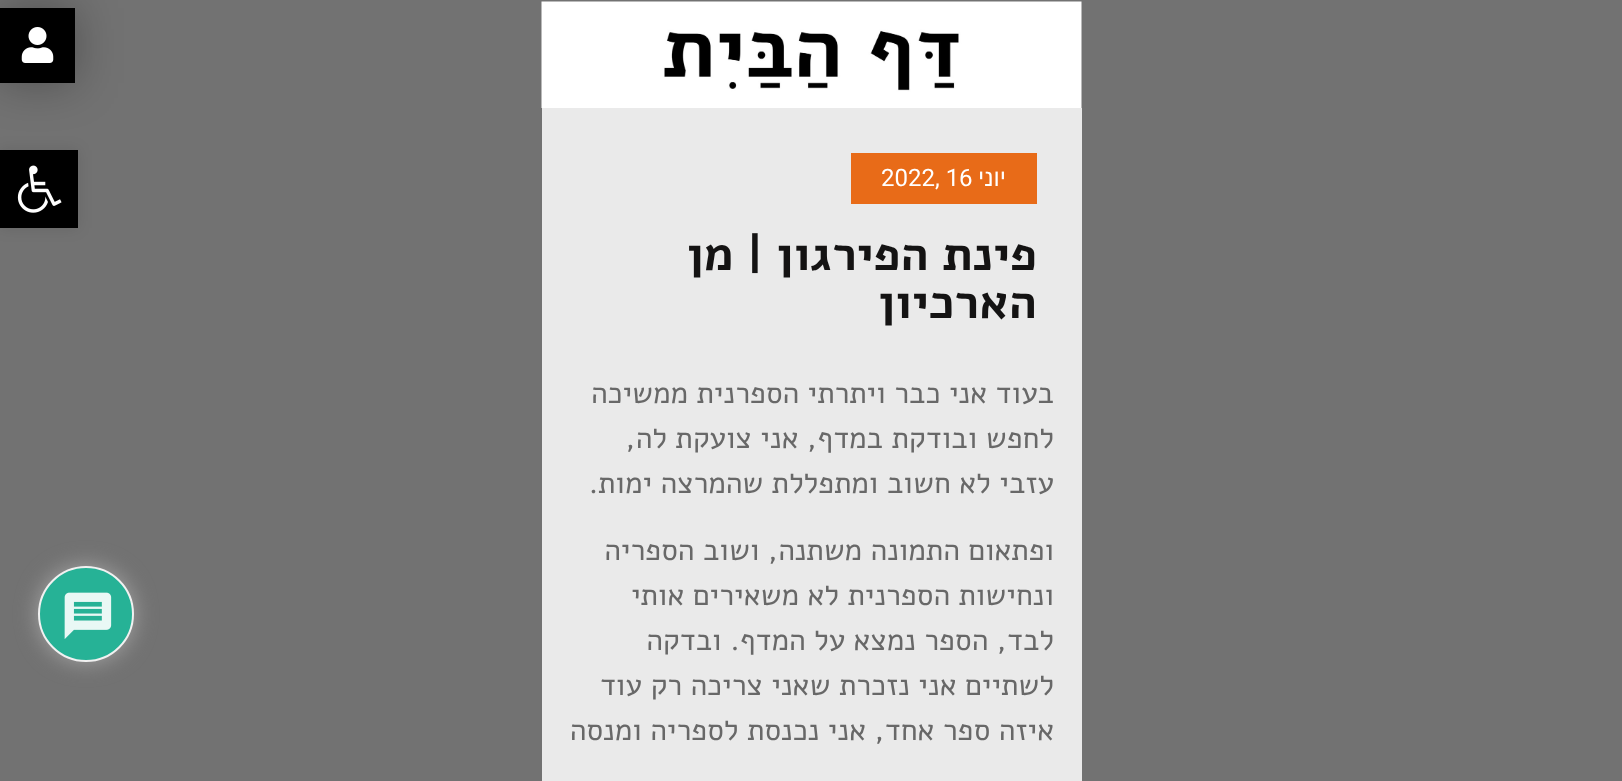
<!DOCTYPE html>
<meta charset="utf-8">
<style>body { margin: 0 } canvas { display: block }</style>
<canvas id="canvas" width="1622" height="781"></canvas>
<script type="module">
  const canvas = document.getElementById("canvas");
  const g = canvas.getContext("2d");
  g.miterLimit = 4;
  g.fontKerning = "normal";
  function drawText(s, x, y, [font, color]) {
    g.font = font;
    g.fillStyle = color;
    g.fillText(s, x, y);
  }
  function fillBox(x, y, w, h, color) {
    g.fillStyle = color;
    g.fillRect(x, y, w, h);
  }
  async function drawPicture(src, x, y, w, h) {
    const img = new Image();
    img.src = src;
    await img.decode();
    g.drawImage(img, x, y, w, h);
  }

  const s1 = ["24px Liberation Sans", "#FFFFFF"];
  const s2 = ["24px Roboto", "#FFFFFF"];
  const s3 = ["bold 48px Alef", "#141313"];
  const s4 = ["30px Alef", "#686868"];

  fillBox(0, 0, 1622, 781, "#727272");
  await drawPicture("pic1.png", 541, 1, 541, 107);
  g.fillStyle = "rgba(0, 0, 0, 0.3)";
  g.filter = "blur(22.5px)";
  g.beginPath();
  g.rect(0, 8, 75, 75);
  g.fill();
  g.filter = "none";
  fillBox(0, 8, 75, 75, "#000000");
  await drawPicture("pic2.png", 21, 27, 33, 36);
  fillBox(542, 108, 540, 673, "#EAEAEA");
  fillBox(851, 153, 186, 51, "#E86B18");
  g.direction = "rtl";
  drawText("יוני", 1006, 186, s1);
  g.direction = "ltr";
  drawText("2022, 16", 881, 186, s2);
  g.direction = "rtl";
  drawText("פינת הפירגון | מן", 1037, 270, s3);
  drawText("הארכיון", 1037, 318, s3);
  drawText("בעוד אני כבר ויתרתי הספרנית ממשיכה", 1054, 403, s4);
  drawText("לחפש ובודקת במדף, אני צועקת לה,", 1054, 448, s4);
  drawText("עזבי לא חשוב ומתפללת שהמרצה ימות.", 1054, 493, s4);
  drawText("ופתאום התמונה משתנה, ושוב הספריה", 1054, 560, s4);
  drawText("ונחישות הספרנית לא משאירים אותי", 1054, 605, s4);
  drawText("לבד, הספר נמצא על המדף. ובדקה", 1054, 650, s4);
  drawText("לשתיים אני נזכרת שאני צריכה רק עוד", 1054, 695, s4);
  drawText("איזה ספר אחד, אני נכנסת לספריה ומנסה", 1054, 740, s4);
  g.fillStyle = "rgba(0, 0, 0, 0.1)";
  g.filter = "blur(7.5px)";
  g.beginPath();
  g.rect(0, 150, 78, 78);
  g.fill();
  g.filter = "none";
  fillBox(0, 150, 78, 78, "#000000");
  await drawPicture("pic3.png", 17, 165, 45, 48);
  g.fillStyle = "#A4A4A4";
  g.filter = "blur(11px)";
  g.beginPath();
  g.roundRect(38, 566, 96, 96, 48);
  g.fill();
  g.filter = "none";
  g.fillStyle = "#26B296";
  g.beginPath();
  g.arc(86, 614, 47, 0, Math.PI * 2);
  g.fill();
  g.strokeStyle = "#F1F1F1";
  g.lineWidth = 2;
  g.stroke();
  await drawPicture("pic4.png", 64, 592, 48, 47);
</script>
